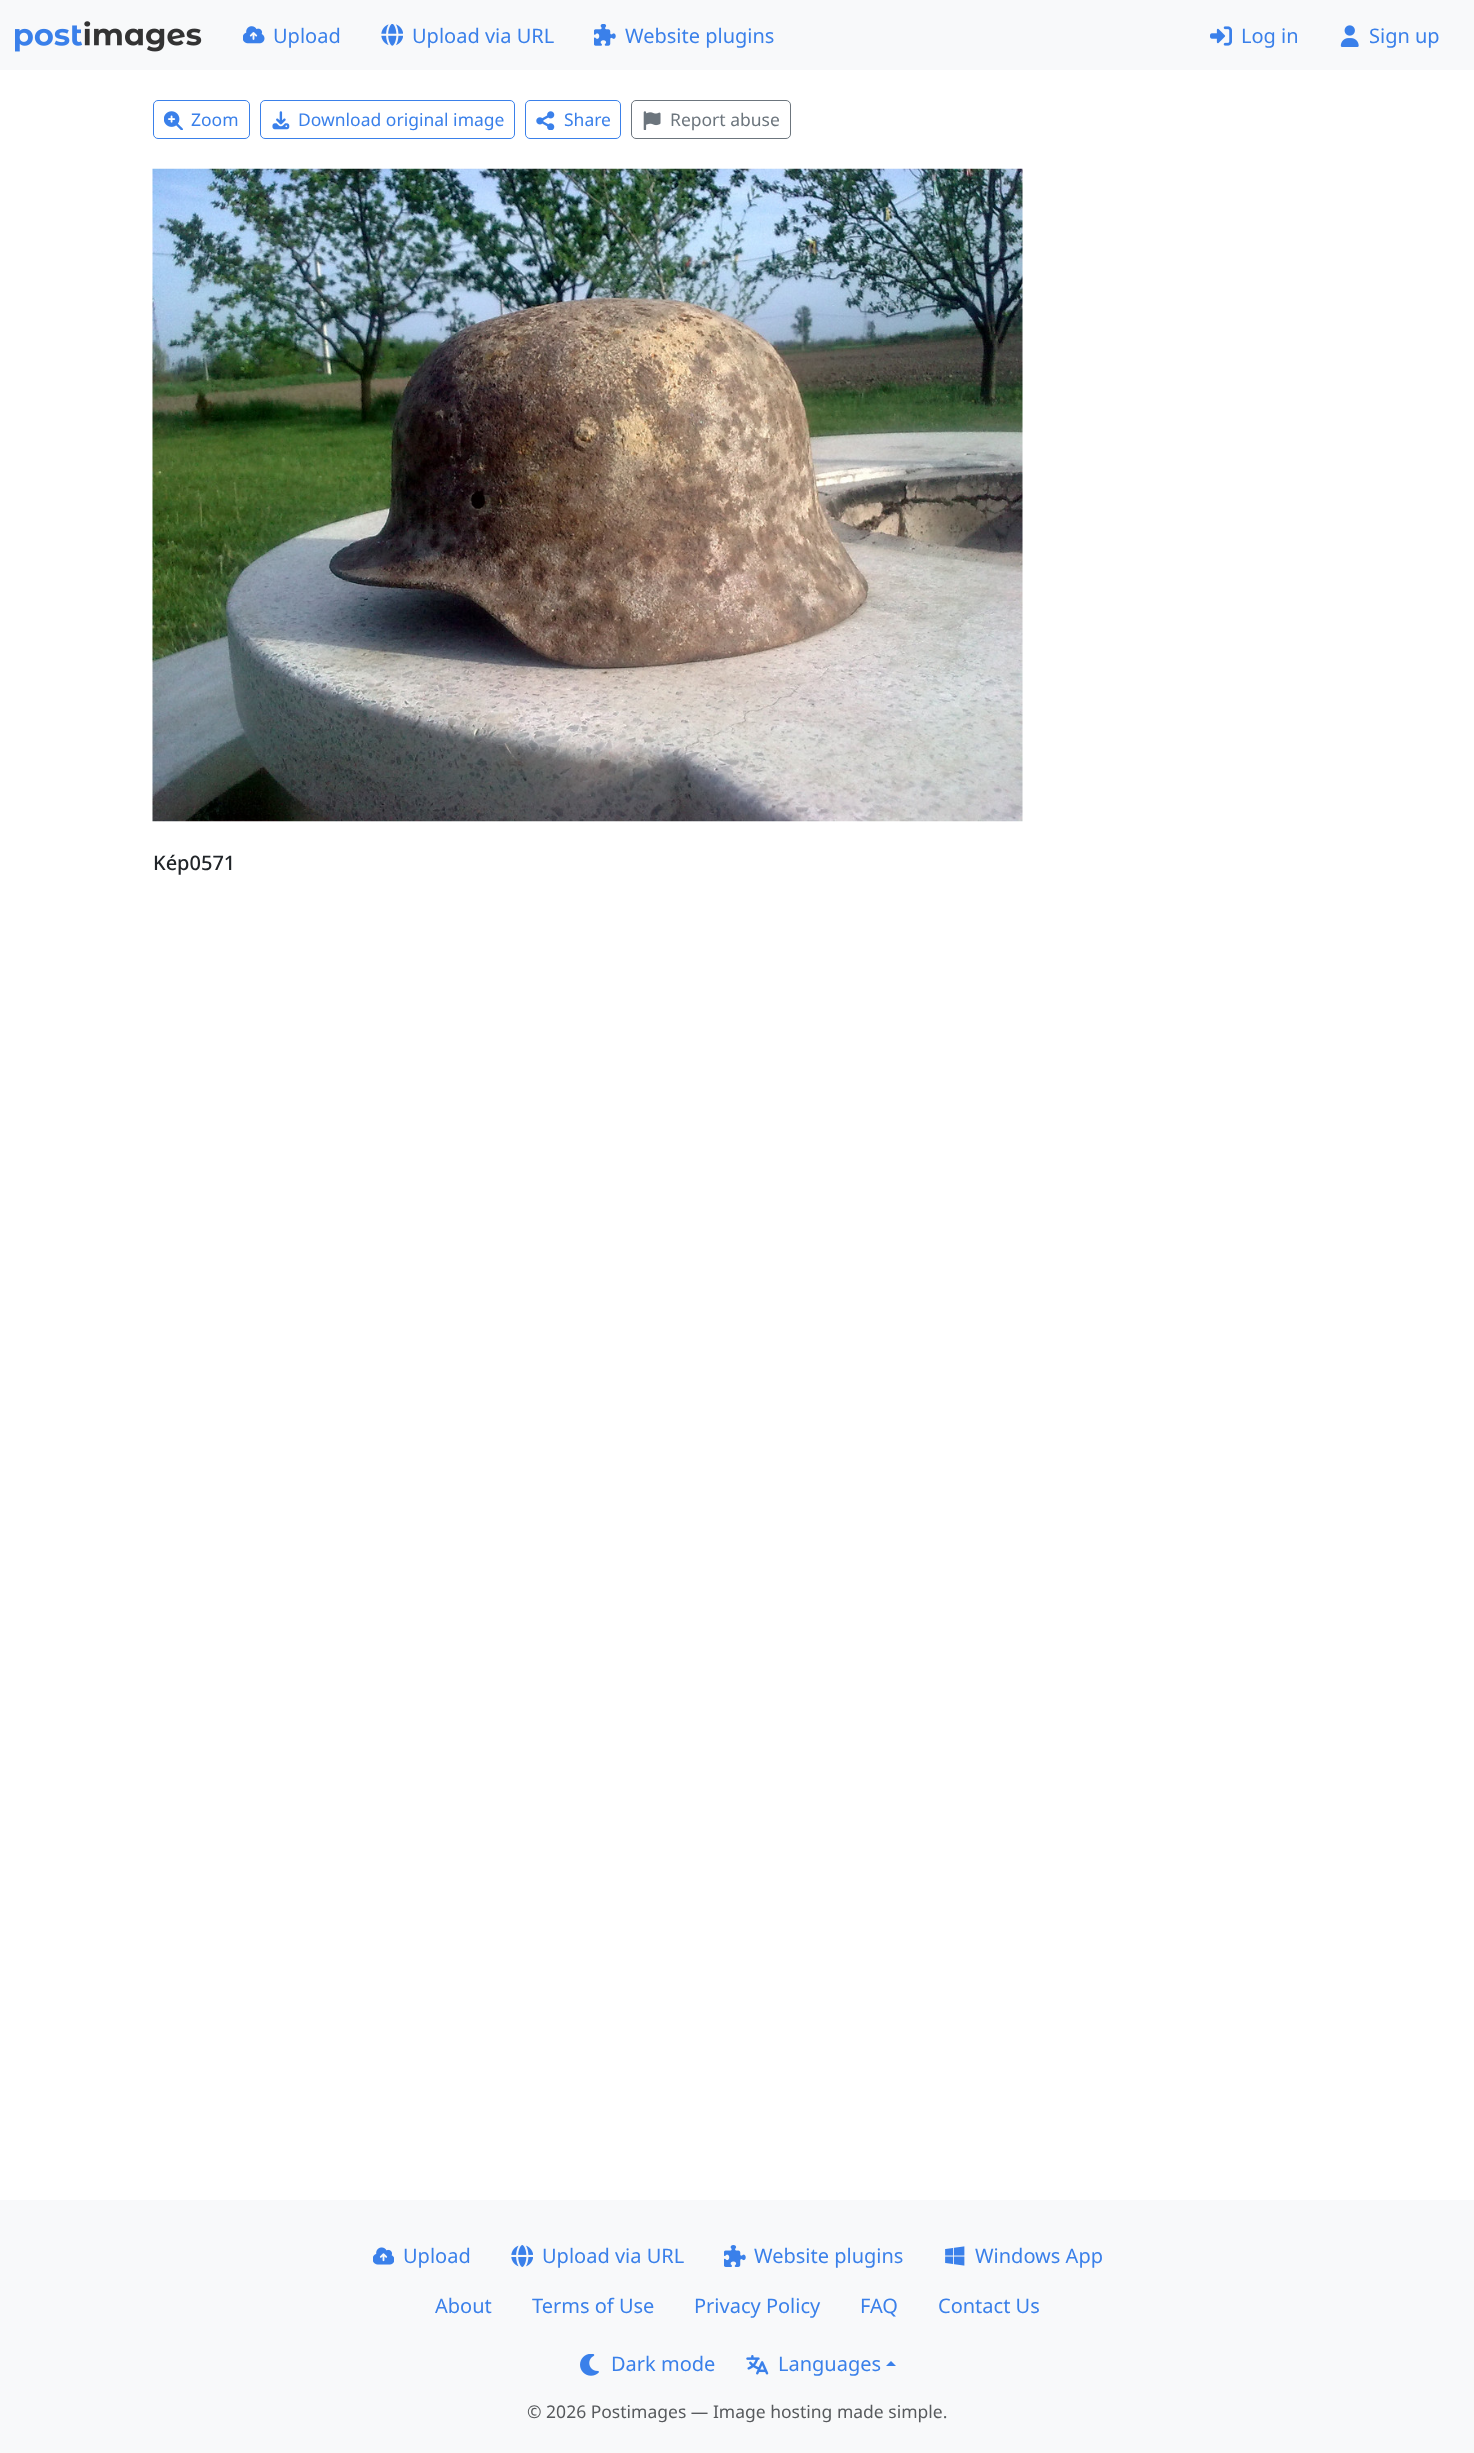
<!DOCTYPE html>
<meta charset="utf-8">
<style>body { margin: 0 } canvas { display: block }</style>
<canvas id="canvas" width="1474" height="2453"></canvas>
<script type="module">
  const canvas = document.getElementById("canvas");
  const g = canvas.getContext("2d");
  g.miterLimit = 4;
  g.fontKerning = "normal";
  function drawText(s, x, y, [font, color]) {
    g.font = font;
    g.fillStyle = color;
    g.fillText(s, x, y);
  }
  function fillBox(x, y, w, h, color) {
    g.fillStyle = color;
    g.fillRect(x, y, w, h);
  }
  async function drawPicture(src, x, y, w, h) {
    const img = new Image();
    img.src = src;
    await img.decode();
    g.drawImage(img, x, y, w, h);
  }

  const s1 = ["20px Noto Sans", "#3A80EA"];
  const s2 = ["17.5px Noto Sans", "#3A80EA"];
  const s3 = ["17.5px Noto Sans", "#6C757D"];
  const s4 = ["500 20px Noto Sans", "#212529"];
  const s5 = ["17.5px Noto Sans", "#575A5D"];

  fillBox(0, 0, 1474, 2453, "#FFFFFF");
  fillBox(0, 0, 1474, 70, "#F8F9FA");
  await drawPicture("pic1.png", 15, 21, 187, 31);
  await drawPicture("pic2.png", 243, 26, 22, 18);
  drawText("Upload", 273, 43, s1);
  await drawPicture("pic3.png", 381, 24, 22, 22);
  drawText("Upload via URL", 412, 43, s1);
  await drawPicture("pic4.png", 594, 24, 22, 22);
  drawText("Website plugins", 625, 43, s1);
  await drawPicture("pic5.png", 1210, 26, 22, 20);
  drawText("Log in", 1241, 43, s1);
  await drawPicture("pic6.png", 1340, 25, 19, 22);
  drawText("Sign up", 1369, 43, s1);
  g.beginPath();
  g.roundRect(153.5, 100.5, 96, 38, 4.5);
  g.strokeStyle = "#3A80EA";
  g.stroke();
  await drawPicture("pic7.png", 164, 111, 19, 19);
  drawText("Zoom", 191, 126, s2);
  g.beginPath();
  g.roundRect(260.5, 100.5, 254, 38, 4.5);
  g.stroke();
  await drawPicture("pic8.png", 272, 111, 18, 19);
  drawText("Download original image", 298, 126, s2);
  g.beginPath();
  g.roundRect(525.5, 100.5, 95, 38, 4.5);
  g.stroke();
  await drawPicture("pic9.png", 536, 111, 19, 19);
  drawText("Share", 564, 126, s2);
  g.beginPath();
  g.roundRect(631.5, 100.5, 159, 38, 4.5);
  g.strokeStyle = "#6C757D";
  g.stroke();
  await drawPicture("pic10.png", 643, 111, 18, 19);
  drawText("Report abuse", 670, 126, s3);
  await drawPicture("pic11.png", 152, 168, 871, 654);
  drawText("Kép0571", 153, 870, s4);
  fillBox(0, 2200, 1474, 253, "#F8F9FA");
  await drawPicture("pic12.png", 373, 2247, 21, 18);
  drawText("Upload", 403, 2263, s1);
  await drawPicture("pic13.png", 511, 2245, 22, 22);
  drawText("Upload via URL", 542, 2263, s1);
  await drawPicture("pic14.png", 724, 2245, 22, 22);
  drawText("Website plugins", 754, 2263, s1);
  await drawPicture("pic15.png", 945, 2246, 20, 20);
  drawText("Windows App", 975, 2263, s1);
  drawText("About", 435, 2313, s1);
  drawText("Terms of Use", 532, 2313, s1);
  drawText("Privacy Policy", 694, 2313, s1);
  drawText("FAQ", 860, 2313, s1);
  drawText("Contact Us", 938, 2313, s1);
  await drawPicture("pic16.png", 580, 2354, 19, 22);
  drawText("Dark mode", 611, 2371, s1);
  await drawPicture("pic17.png", 746, 2355, 23, 20);
  drawText("Languages", 778, 2371, s1);
  g.beginPath();
  g.moveTo(896, 2366);
  g.lineTo(886, 2366);
  g.lineTo(891, 2361);
  g.closePath();
  g.fill();
  drawText("© 2026 Postimages — Image hosting made simple.", 527, 2418, s5);
</script>
